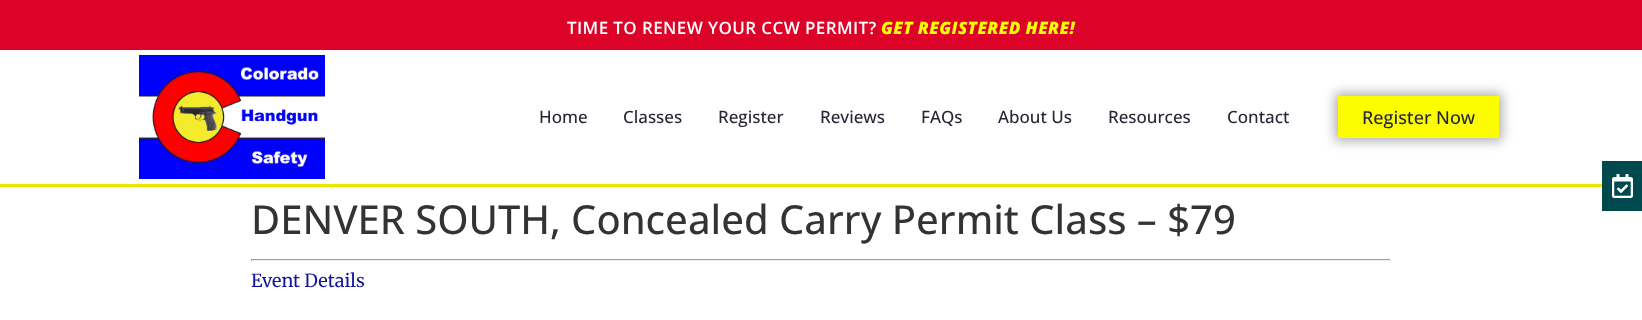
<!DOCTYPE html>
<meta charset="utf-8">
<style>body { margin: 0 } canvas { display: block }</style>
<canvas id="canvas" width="1642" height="320"></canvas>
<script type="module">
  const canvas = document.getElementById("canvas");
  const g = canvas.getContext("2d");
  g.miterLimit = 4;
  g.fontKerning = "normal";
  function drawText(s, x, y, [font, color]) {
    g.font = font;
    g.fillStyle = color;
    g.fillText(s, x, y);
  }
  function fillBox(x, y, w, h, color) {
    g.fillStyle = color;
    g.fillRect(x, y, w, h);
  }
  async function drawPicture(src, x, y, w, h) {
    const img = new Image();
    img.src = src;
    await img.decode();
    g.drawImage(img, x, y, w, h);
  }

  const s1 = ["600 17px Open Sans", "#FFFFFF"];
  const s2 = ["italic 800 17px Open Sans", "#FCFD01"];
  const s3 = ["500 17px Open Sans", "#262735"];
  const s4 = ["500 18px Open Sans", "#262735"];
  const s5 = ["500 40px Open Sans", "#333333"];
  const s6 = ["18px Merriweather", "#14149A"];

  fillBox(0, 0, 1642, 320, "#FFFFFF");
  fillBox(0, 0, 1642, 50, "#DD0227");
  g.letterSpacing = "0.4px";
  drawText("TIME TO RENEW YOUR CCW PERMIT?", 567, 34, s1);
  drawText("GET REGISTERED HERE!", 881, 34, s2);
  fillBox(0, 184, 1602, 3, "#F0E500");
  await drawPicture("pic1.png", 139, 55, 186, 124);
  g.letterSpacing = "0px";
  drawText("Home", 539, 123, s3);
  drawText("Classes", 623, 123, s3);
  drawText("Register", 718, 123, s3);
  drawText("Reviews", 820, 123, s3);
  drawText("FAQs", 921, 123, s3);
  drawText("About Us", 998, 123, s3);
  drawText("Resources", 1108, 123, s3);
  drawText("Contact", 1227, 123, s3);
  g.fillStyle = "rgba(0, 0, 0, 0.32)";
  g.filter = "blur(6px)";
  g.beginPath();
  g.rect(1335, 93, 167, 48);
  g.fill();
  g.filter = "none";
  fillBox(1338, 96, 161, 42, "#FCFD01");
  drawText("Register Now", 1362, 124, s4);
  fillBox(1602, 161, 40, 50, "#00494F");
  await drawPicture("pic2.png", 1612, 174, 21, 24);
  drawText("DENVER SOUTH, Concealed Carry Permit Class – $79", 251, 234, s5);
  fillBox(251, 259, 1140, 1, "#9F9F9F");
  fillBox(1390, 259, 1, 2, "#EEEEEE");
  fillBox(251, 260, 1140, 1, "#EEEEEE");
  fillBox(251, 259, 1, 2, "#9F9F9F");
  drawText("Event Details", 251, 287, s6);
</script>
